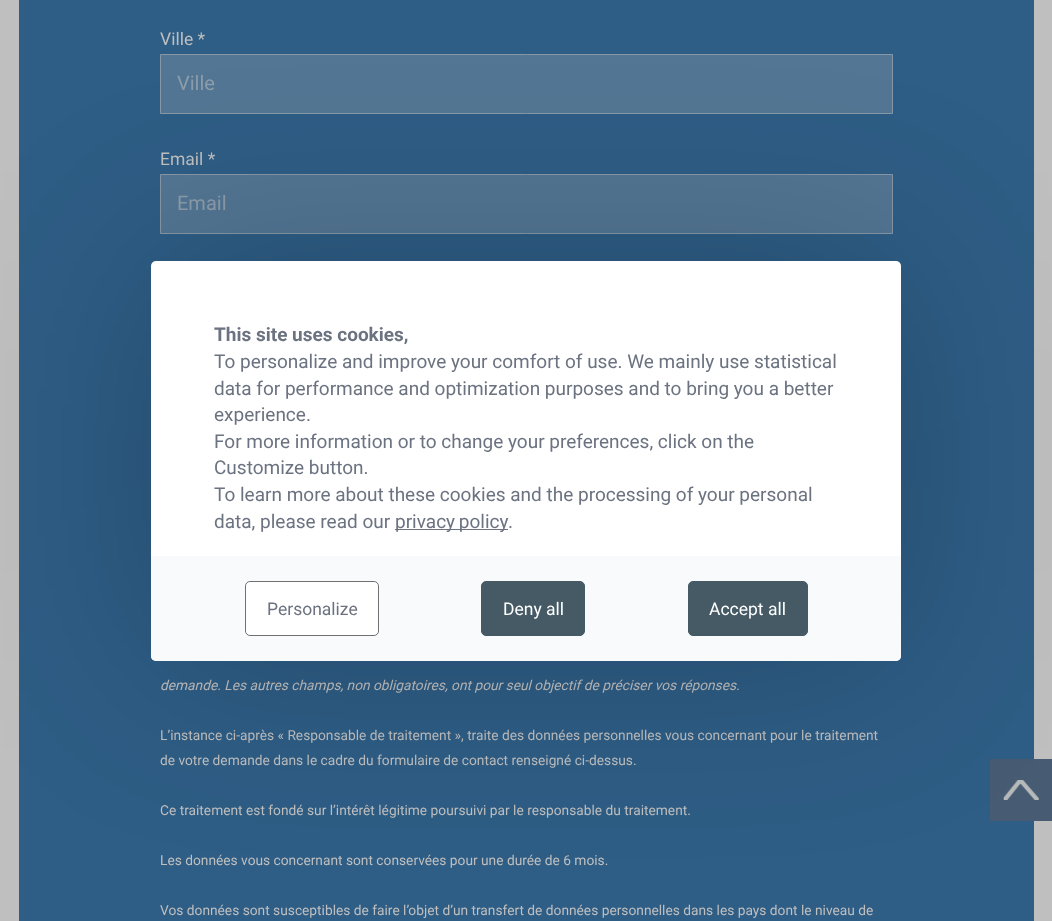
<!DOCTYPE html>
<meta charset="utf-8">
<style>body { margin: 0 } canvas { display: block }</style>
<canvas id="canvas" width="1052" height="921"></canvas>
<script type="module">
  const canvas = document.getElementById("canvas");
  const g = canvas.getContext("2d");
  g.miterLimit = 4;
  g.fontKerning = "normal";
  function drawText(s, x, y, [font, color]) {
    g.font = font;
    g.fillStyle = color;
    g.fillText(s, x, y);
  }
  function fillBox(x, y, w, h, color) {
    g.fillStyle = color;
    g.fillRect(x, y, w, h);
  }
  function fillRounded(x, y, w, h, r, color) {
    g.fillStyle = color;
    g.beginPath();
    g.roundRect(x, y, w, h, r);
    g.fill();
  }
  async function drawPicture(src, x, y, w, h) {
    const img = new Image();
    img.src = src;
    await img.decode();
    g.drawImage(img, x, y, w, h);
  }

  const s1 = ["17.5px Roboto", "#BFBFBF"];
  const s2 = ["20px Roboto", "#8C9DAB"];
  const s3 = ["italic 13.75px Roboto", "#BFBFBF"];
  const s4 = ["13.75px Roboto", "#BFBFBF"];
  const s5 = ["bold 19px Roboto", "#6B7280"];
  const s6 = ["19px Roboto", "#6B7280"];
  const s7 = ["17.5px Roboto", "#6B7280"];
  const s8 = ["17.5px Roboto", "#FFFFFF"];

  fillBox(0, 0, 1052, 921, "#BFBFBF");
  fillBox(19, 0, 1015, 921, "#2E5D85");
  drawText("Ville *", 160, 45, s1);
  g.fillStyle = "#537694";
  g.beginPath();
  g.rect(160.5, 54.5, 732, 59);
  g.fill();
  g.strokeStyle = "#8698A8";
  g.stroke();
  drawText("Ville", 177, 90, s2);
  drawText("Email *", 160, 165, s1);
  g.fillStyle = "#537694";
  g.beginPath();
  g.rect(160.5, 174.5, 732, 59);
  g.fill();
  g.stroke();
  drawText("Email", 177, 210, s2);
  drawText("demande. Les autres champs, non obligatoires, ont pour seul objectif de préciser vos réponses.", 160, 690, s3);
  drawText("L’instance ci-après « Responsable de traitement », traite des données personnelles vous concernant pour le traitement", 160, 740, s4);
  drawText("de votre demande dans le cadre du formulaire de contact renseigné ci-dessus.", 160, 765, s4);
  drawText("Ce traitement est fondé sur l’intérêt légitime poursuivi par le responsable du traitement.", 160, 815, s4);
  drawText("Les données vous concernant sont conservées pour une durée de 6 mois.", 160, 865, s4);
  drawText("Vos données sont susceptibles de faire l’objet d’un transfert de données personnelles dans les pays dont le niveau de", 160, 915, s4);
  fillBox(990, 759, 62, 62, "#475B72");
  await drawPicture("pic1.png", 1003, 780, 36, 20);
  g.fillStyle = "rgba(0, 0, 0, 0.2)";
  g.filter = "blur(94px)";
  g.beginPath();
  g.roundRect(151, 261, 750, 400, 5);
  g.fill();
  g.filter = "none";
  fillRounded(151, 261, 750, 400, 5, "#FFFFFF");
  drawText("This site uses cookies,", 214, 341, s5);
  drawText("To personalize and improve your comfort of use. We mainly use statistical", 214, 368, s6);
  drawText("data for performance and optimization purposes and to bring you a better", 214, 395, s6);
  drawText("experience.", 214, 421, s6);
  drawText("For more information or to change your preferences, click on the", 214, 448, s6);
  drawText("Customize button.", 214, 474, s6);
  drawText("To learn more about these cookies and the processing of your personal", 214, 501, s6);
  drawText("data, please read our", 214, 528, s6);
  fillBox(395, 529, 113, 1, "#6B7280");
  g.wordSpacing = "-1px";
  drawText("privacy policy", 395, 528, s6);
  g.wordSpacing = "0px";
  drawText(".", 508, 528, s6);
  g.fillStyle = "#F9FAFB";
  g.beginPath();
  g.roundRect(151, 556, 750, 105, [0, 0, 5, 5]);
  g.fill();
  g.fillStyle = "#FFFFFF";
  g.beginPath();
  g.roundRect(245.5, 581.5, 133, 54, 4.5);
  g.fill();
  g.strokeStyle = "#707070";
  g.stroke();
  drawText("Personalize", 267, 615, s7);
  g.fillStyle = "#455A64";
  g.beginPath();
  g.roundRect(481.5, 581.5, 103, 54, 4.5);
  g.fill();
  g.strokeStyle = "#455A64";
  g.stroke();
  drawText("Deny all", 503, 615, s8);
  g.fillStyle = "#455A64";
  g.beginPath();
  g.roundRect(688.5, 581.5, 119, 54, 4.5);
  g.fill();
  g.stroke();
  drawText("Accept all", 709, 615, s8);
</script>
